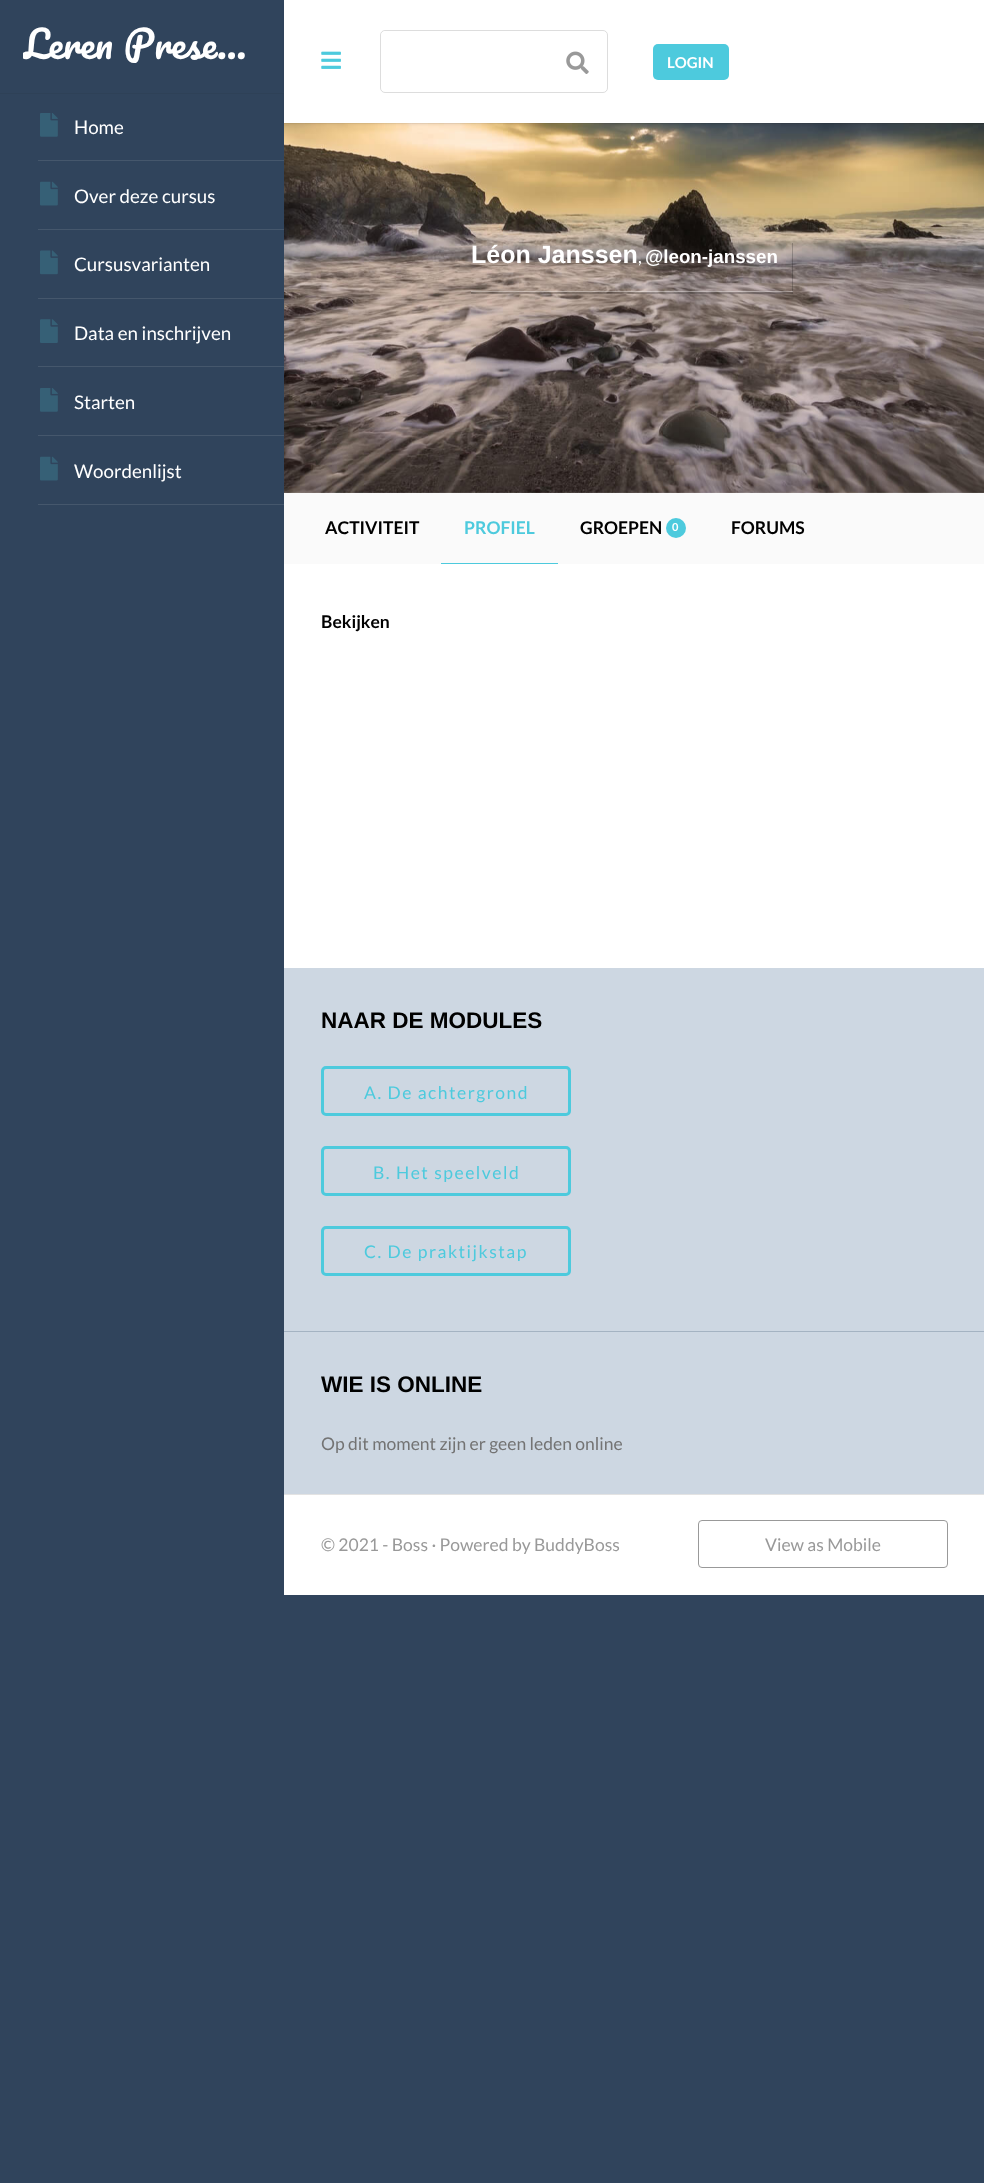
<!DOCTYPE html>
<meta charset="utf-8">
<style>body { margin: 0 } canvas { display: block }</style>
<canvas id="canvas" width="984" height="2183"></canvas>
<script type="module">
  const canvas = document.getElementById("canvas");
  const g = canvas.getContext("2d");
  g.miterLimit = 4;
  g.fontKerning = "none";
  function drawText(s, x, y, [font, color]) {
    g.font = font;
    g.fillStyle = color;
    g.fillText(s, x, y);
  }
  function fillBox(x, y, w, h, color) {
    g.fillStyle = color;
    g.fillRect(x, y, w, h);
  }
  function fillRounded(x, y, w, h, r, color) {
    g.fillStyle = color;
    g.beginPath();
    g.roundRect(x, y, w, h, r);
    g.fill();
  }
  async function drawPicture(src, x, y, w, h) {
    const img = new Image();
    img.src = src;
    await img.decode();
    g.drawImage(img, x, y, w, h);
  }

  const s1 = ["37.5px Pacifico", "#FFFFFF"];
  const s2 = ["bold 15px Lato", "#FFFFFF"];
  const s3 = ["18.75px Lato", "#FFFFFF"];
  const s4 = ["bold 25px Arimo", "#FFFFFF"];
  const s5 = ["17.5px Lato", "#FFFFFF"];
  const s6 = ["bold 18.75px Arimo", "#FFFFFF"];
  const s7 = ["bold 17.5px Lato", "#000000"];
  const s8 = ["bold 17.5px Lato", "#4DCADD"];
  const s9 = ["bold 11px Lato", "#FFFFFF"];
  const s10 = ["bold 22.5px Arimo", "#000000"];
  const s11 = ["17.5px Lato", "#4DCADD"];
  const s12 = ["17.5px Lato", "#737373"];
  const s13 = ["17.5px Lato", "#999999"];

  fillBox(0, 0, 984, 2183, "#30445C");
  fillBox(284, 492, 700, 476, "#FFFFFF");
  await drawPicture("pic7.png", 284, 123, 700, 370);
  fillBox(284, 123, 700, 1, "rgba(0, 0, 0, 0.05)");
  g.filter = "blur(1px)";
  g.beginPath();
  g.rect(284, 3, 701, 122);
  g.fill();
  g.filter = "none";
  g.fillStyle = "#2E4157";
  g.beginPath();
  g.moveTo(0, 92);
  g.lineTo(0, 94);
  g.lineTo(284, 94);
  g.lineTo(284, 1);
  g.lineTo(284, 92);
  g.closePath();
  g.fill();
  fillBox(0, 92, 284, 1, "#30445C");
  g.save();
  g.beginPath();
  g.rect(23, 1, 238, 88);
  g.clip();
  g.wordSpacing = "1px";
  drawText("Leren Prese…", 23, 59, s1);
  g.restore();
  fillBox(284, 0, 700, 123, "#FFFFFF");
  await drawPicture("pic1.png", 321, 51, 20, 18);
  g.beginPath();
  g.roundRect(380.5, 30.5, 227, 62, 4.5);
  g.strokeStyle = "#DDDDDD";
  g.stroke();
  fillRounded(381, 31, 225, 60, 5, "#FFFFFF");
  await drawPicture("pic2.png", 566, 51, 23, 23);
  fillRounded(653, 44, 76, 36, 5, "#4DCADD");
  drawText("LOGIN", 667, 68, s2);
  await drawPicture("pic3.png", 40, 113, 18, 24);
  drawText("Home", 74, 134, s3);
  fillBox(38, 160, 246, 1, "#45576C");
  await drawPicture("pic4.png", 40, 181, 18, 25);
  drawText("Over deze cursus", 74, 203, s3);
  fillBox(38, 229, 246, 1, "#45576C");
  await drawPicture("pic5.png", 40, 250, 18, 25);
  drawText("Cursusvarianten", 74, 271, s3);
  fillBox(38, 298, 246, 1, "#45576C");
  await drawPicture("pic6.png", 40, 319, 18, 24);
  drawText("Data en inschrijven", 74, 340, s3);
  fillBox(38, 366, 246, 1, "#45576C");
  await drawPicture("pic3.png", 40, 388, 18, 24);
  drawText("Starten", 74, 409, s3);
  fillBox(38, 435, 246, 1, "#45576C");
  await drawPicture("pic4.png", 40, 456, 18, 25);
  drawText("Woordenlijst", 74, 478, s3);
  fillBox(38, 504, 246, 1, "#45576C");
  g.fillStyle = "rgba(0, 0, 0, 0.2)";
  g.beginPath();
  g.moveTo(471, 243);
  g.lineTo(471, 294);
  g.lineTo(793, 294);
  g.lineTo(793, 243);
  g.lineTo(792, 243);
  g.lineTo(792, 292);
  g.lineTo(471, 292);
  g.closePath();
  g.fill();
  fillBox(471, 291, 322, 1, "rgba(255, 255, 255, 0.3)");
  drawText("Léon Janssen", 471, 263, s4);
  drawText(",", 638, 263, s5);
  drawText("@leon-janssen", 645, 263, s6);
  fillBox(284, 493, 700, 71, "#FAFAFA");
  drawText("ACTIVITEIT", 325, 534, s7);
  fillBox(441, 563, 117, 1, "#4DCADD");
  drawText("PROFIEL", 464, 534, s8);
  drawText("GROEPEN", 580, 534, s7);
  g.fillStyle = "#4DCADD";
  g.beginPath();
  g.arc(676, 528, 10, 0, Math.PI * 2);
  g.fill();
  drawText("0", 672, 531, s9);
  drawText("FORUMS", 731, 534, s7);
  drawText("Bekijken", 321, 628, s7);
  fillBox(284, 968, 700, 526, "#CDD7E2");
  fillBox(284, 1331, 700, 1, "#A4B3C2");
  drawText("NAAR DE MODULES", 321, 1028, s10);
  g.beginPath();
  g.roundRect(322.5, 1067.5, 247, 47, 3.5);
  g.strokeStyle = "#4DCADD";
  g.lineWidth = 3;
  g.stroke();
  g.letterSpacing = "1.5px";
  drawText("A. De achtergrond", 364, 1099, s11);
  g.beginPath();
  g.roundRect(322.5, 1147.5, 247, 47, 3.5);
  g.stroke();
  drawText("B. Het speelveld", 373, 1179, s11);
  g.beginPath();
  g.roundRect(322.5, 1227.5, 247, 47, 3.5);
  g.stroke();
  drawText("C. De praktijkstap", 364, 1258, s11);
  g.letterSpacing = "0px";
  drawText("WIE IS ONLINE", 321, 1392, s10);
  drawText("Op dit moment zijn er geen leden online", 321, 1450, s12);
  fillBox(284, 1495, 700, 100, "#FFFFFF");
  fillBox(284, 1494, 700, 1, "#E3E3E3");
  drawText("© 2021 - Boss · Powered by BuddyBoss", 321, 1551, s13);
  g.beginPath();
  g.roundRect(698.5, 1520.5, 249, 47, 3.5);
  g.strokeStyle = "#999999";
  g.lineWidth = 1;
  g.stroke();
  drawText("View as Mobile", 765, 1551, s13);
</script>
